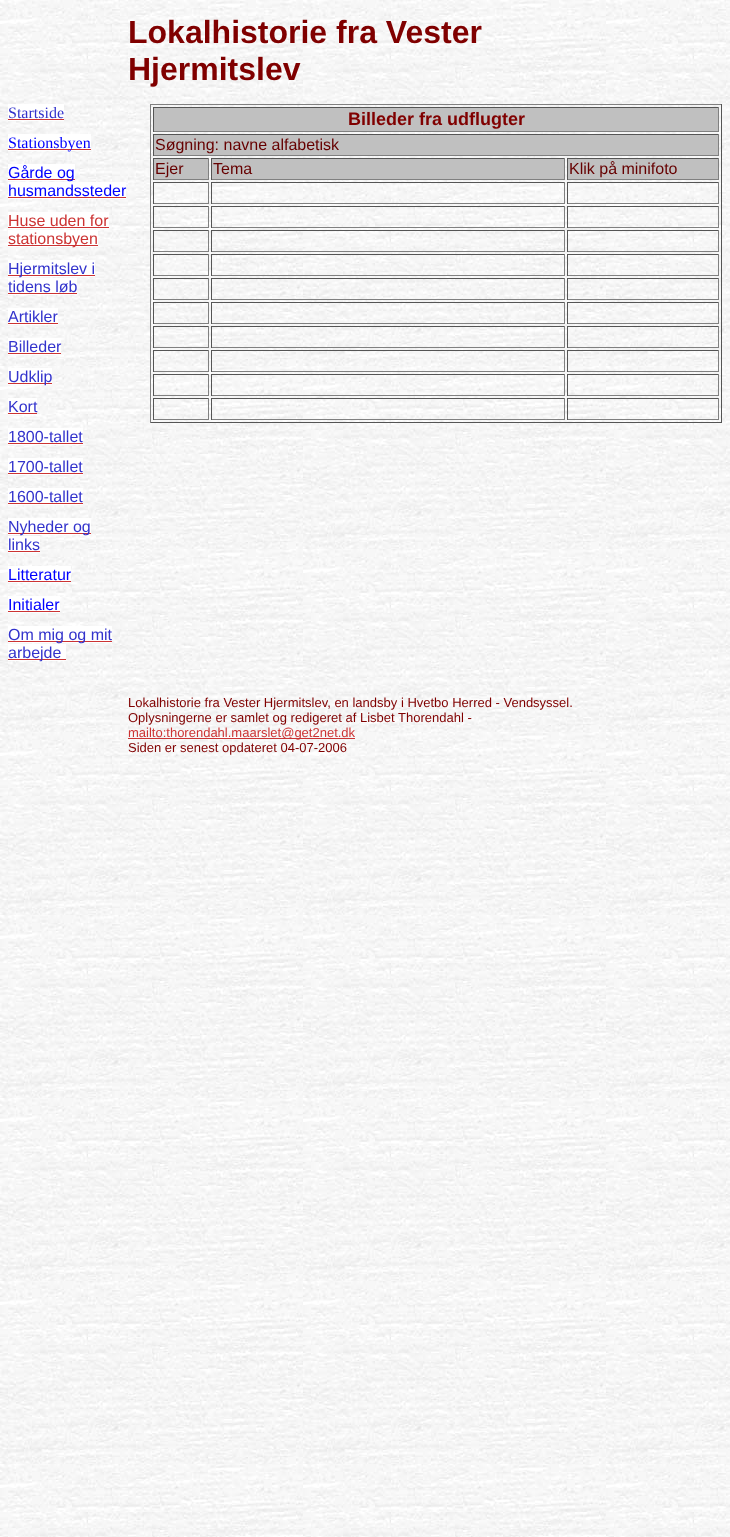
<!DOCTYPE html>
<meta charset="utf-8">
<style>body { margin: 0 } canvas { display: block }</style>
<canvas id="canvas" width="730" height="1537"></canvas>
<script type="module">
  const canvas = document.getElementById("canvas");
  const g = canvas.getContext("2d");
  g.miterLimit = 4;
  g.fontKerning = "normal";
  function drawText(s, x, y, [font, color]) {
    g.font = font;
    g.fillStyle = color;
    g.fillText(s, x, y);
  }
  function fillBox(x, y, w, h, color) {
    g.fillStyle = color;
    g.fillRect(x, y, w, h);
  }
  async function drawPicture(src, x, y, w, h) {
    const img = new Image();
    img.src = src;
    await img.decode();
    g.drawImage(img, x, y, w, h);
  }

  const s1 = ["bold 32px Liberation Sans", "#800000"];
  const s2 = ["16px Liberation Serif", "#3333CC"];
  const s3 = ["16px Liberation Serif", "#0000FF"];
  const s4 = ["16px Liberation Sans", "#0000FF"];
  const s5 = ["16px Liberation Sans", "#CC3333"];
  const s6 = ["16px Liberation Sans", "#3333CC"];
  const s7 = ["bold 18px Liberation Sans", "#800000"];
  const s8 = ["16px Liberation Sans", "#660000"];
  const s9 = ["13px Liberation Sans", "#800000"];
  const s10 = ["13px Liberation Sans", "#CC3333"];

  fillBox(0, 0, 730, 1537, "#FFFFFF");
  await drawPicture("pic1.png", 0, 0, 730, 1537);
  drawText("Lokalhistorie fra Vester", 128, 43, s1);
  drawText("Hjermitslev", 128, 80, s1);
  fillBox(8, 104, 56, 17, "#FFFFFF");
  drawText("Startside", 8, 118, s2);
  fillBox(8, 119, 56, 1, "#CC3333");
  fillBox(8, 134, 83, 17, "#FFFFFF");
  fillBox(8, 149, 83, 1, "#CC3333");
  drawText("Stationsbyen", 8, 148, s3);
  fillBox(8, 164, 67, 17, "#FFFFFF");
  fillBox(8, 179, 67, 1, "#CC3333");
  drawText("Gårde og", 8, 178, s4);
  fillBox(8, 182, 118, 17, "#FFFFFF");
  drawText("husmandssteder", 8, 196, s4);
  fillBox(8, 197, 118, 1, "#CC3333");
  fillBox(8, 212, 101, 17, "#FFFFFF");
  drawText("Huse uden for", 8, 226, s5);
  fillBox(8, 227, 101, 1, "#CC3333");
  fillBox(8, 230, 90, 17, "#FFFFFF");
  fillBox(8, 245, 90, 1, "#CC3333");
  drawText("stationsbyen", 8, 244, s5);
  fillBox(8, 260, 87, 17, "#FFFFFF");
  fillBox(8, 275, 87, 1, "#CC3333");
  drawText("Hjermitslev i", 8, 274, s6);
  fillBox(8, 278, 69, 17, "#FFFFFF");
  drawText("tidens løb", 8, 292, s6);
  fillBox(8, 293, 69, 1, "#CC3333");
  fillBox(8, 308, 50, 17, "#FFFFFF");
  drawText("Artikler", 8, 322, s6);
  fillBox(8, 323, 50, 1, "#CC3333");
  fillBox(8, 338, 53, 17, "#FFFFFF");
  drawText("Billeder", 8, 352, s6);
  fillBox(8, 353, 53, 1, "#CC3333");
  fillBox(8, 368, 44, 17, "#FFFFFF");
  fillBox(8, 383, 44, 1, "#CC3333");
  drawText("Udklip", 8, 382, s6);
  fillBox(8, 398, 29, 17, "#FFFFFF");
  drawText("Kort", 8, 412, s6);
  fillBox(8, 413, 29, 1, "#CC3333");
  fillBox(8, 428, 75, 17, "#FFFFFF");
  drawText("1800-tallet", 8, 442, s6);
  fillBox(8, 443, 75, 1, "#CC3333");
  fillBox(8, 458, 75, 17, "#FFFFFF");
  drawText("1700-tallet", 8, 472, s6);
  fillBox(8, 473, 75, 1, "#CC3333");
  fillBox(8, 488, 75, 17, "#FFFFFF");
  drawText("1600-tallet", 8, 502, s6);
  fillBox(8, 503, 75, 1, "#CC3333");
  fillBox(8, 518, 83, 17, "#FFFFFF");
  fillBox(8, 533, 83, 1, "#CC3333");
  drawText("Nyheder og", 8, 532, s6);
  fillBox(8, 536, 32, 17, "#FFFFFF");
  drawText("links", 8, 550, s6);
  fillBox(8, 551, 32, 1, "#CC3333");
  fillBox(8, 566, 63, 17, "#FFFFFF");
  drawText("Litteratur", 8, 580, s4);
  fillBox(8, 581, 63, 1, "#CC3333");
  fillBox(8, 596, 52, 17, "#FFFFFF");
  drawText("Initialer", 8, 610, s4);
  fillBox(8, 611, 52, 1, "#CC3333");
  fillBox(8, 626, 104, 17, "#FFFFFF");
  fillBox(8, 641, 104, 1, "#CC3333");
  drawText("Om mig og mit", 8, 640, s6);
  fillBox(8, 644, 58, 17, "#FFFFFF");
  fillBox(8, 659, 58, 1, "#CC3333");
  drawText("arbejde", 8, 658, s6);
  fillBox(150, 104, 572, 1, "#808080");
  fillBox(721, 104, 1, 319, "#555555");
  fillBox(150, 422, 572, 1, "#555555");
  fillBox(150, 104, 1, 319, "#808080");
  fillBox(154, 108, 564, 23, "#C0C0C0");
  fillBox(153, 107, 566, 1, "#555555");
  fillBox(718, 107, 1, 25, "#808080");
  fillBox(153, 131, 566, 1, "#808080");
  fillBox(153, 107, 1, 25, "#555555");
  drawText("Billeder fra udflugter", 348, 125, s7);
  fillBox(154, 135, 564, 20, "#C0C0C0");
  fillBox(153, 134, 566, 1, "#555555");
  fillBox(718, 134, 1, 22, "#808080");
  fillBox(153, 155, 566, 1, "#808080");
  fillBox(153, 134, 1, 22, "#555555");
  drawText("Søgning: navne alfabetisk", 155, 150, s8);
  fillBox(154, 159, 54, 20, "#C0C0C0");
  fillBox(153, 158, 56, 1, "#555555");
  fillBox(208, 158, 1, 22, "#808080");
  fillBox(153, 179, 56, 1, "#808080");
  fillBox(153, 158, 1, 22, "#555555");
  drawText("Ejer", 155, 174, s8);
  fillBox(212, 159, 352, 20, "#C0C0C0");
  fillBox(211, 158, 354, 1, "#555555");
  fillBox(564, 158, 1, 22, "#808080");
  fillBox(211, 179, 354, 1, "#808080");
  fillBox(211, 158, 1, 22, "#555555");
  drawText("Tema", 213, 174, s8);
  fillBox(568, 159, 150, 20, "#C0C0C0");
  fillBox(567, 158, 152, 1, "#555555");
  fillBox(718, 158, 1, 22, "#808080");
  fillBox(567, 179, 152, 1, "#808080");
  fillBox(567, 158, 1, 22, "#555555");
  drawText("Klik på minifoto", 569, 174, s8);
  fillBox(153, 182, 56, 1, "#555555");
  fillBox(208, 182, 1, 22, "#808080");
  fillBox(153, 203, 56, 1, "#808080");
  fillBox(153, 182, 1, 22, "#555555");
  fillBox(211, 182, 354, 1, "#555555");
  fillBox(564, 182, 1, 22, "#808080");
  fillBox(211, 203, 354, 1, "#808080");
  fillBox(211, 182, 1, 22, "#555555");
  fillBox(567, 182, 152, 1, "#555555");
  fillBox(718, 182, 1, 22, "#808080");
  fillBox(567, 203, 152, 1, "#808080");
  fillBox(567, 182, 1, 22, "#555555");
  fillBox(153, 206, 56, 1, "#555555");
  fillBox(208, 206, 1, 22, "#808080");
  fillBox(153, 227, 56, 1, "#808080");
  fillBox(153, 206, 1, 22, "#555555");
  fillBox(211, 206, 354, 1, "#555555");
  fillBox(564, 206, 1, 22, "#808080");
  fillBox(211, 227, 354, 1, "#808080");
  fillBox(211, 206, 1, 22, "#555555");
  fillBox(567, 206, 152, 1, "#555555");
  fillBox(718, 206, 1, 22, "#808080");
  fillBox(567, 227, 152, 1, "#808080");
  fillBox(567, 206, 1, 22, "#555555");
  fillBox(153, 230, 56, 1, "#555555");
  fillBox(208, 230, 1, 22, "#808080");
  fillBox(153, 251, 56, 1, "#808080");
  fillBox(153, 230, 1, 22, "#555555");
  fillBox(211, 230, 354, 1, "#555555");
  fillBox(564, 230, 1, 22, "#808080");
  fillBox(211, 251, 354, 1, "#808080");
  fillBox(211, 230, 1, 22, "#555555");
  fillBox(567, 230, 152, 1, "#555555");
  fillBox(718, 230, 1, 22, "#808080");
  fillBox(567, 251, 152, 1, "#808080");
  fillBox(567, 230, 1, 22, "#555555");
  fillBox(153, 254, 56, 1, "#555555");
  fillBox(208, 254, 1, 22, "#808080");
  fillBox(153, 275, 56, 1, "#808080");
  fillBox(153, 254, 1, 22, "#555555");
  fillBox(211, 254, 354, 1, "#555555");
  fillBox(564, 254, 1, 22, "#808080");
  fillBox(211, 275, 354, 1, "#808080");
  fillBox(211, 254, 1, 22, "#555555");
  fillBox(567, 254, 152, 1, "#555555");
  fillBox(718, 254, 1, 22, "#808080");
  fillBox(567, 275, 152, 1, "#808080");
  fillBox(567, 254, 1, 22, "#555555");
  fillBox(153, 278, 56, 1, "#555555");
  fillBox(208, 278, 1, 22, "#808080");
  fillBox(153, 299, 56, 1, "#808080");
  fillBox(153, 278, 1, 22, "#555555");
  fillBox(211, 278, 354, 1, "#555555");
  fillBox(564, 278, 1, 22, "#808080");
  fillBox(211, 299, 354, 1, "#808080");
  fillBox(211, 278, 1, 22, "#555555");
  fillBox(567, 278, 152, 1, "#555555");
  fillBox(718, 278, 1, 22, "#808080");
  fillBox(567, 299, 152, 1, "#808080");
  fillBox(567, 278, 1, 22, "#555555");
  fillBox(153, 302, 56, 1, "#555555");
  fillBox(208, 302, 1, 22, "#808080");
  fillBox(153, 323, 56, 1, "#808080");
  fillBox(153, 302, 1, 22, "#555555");
  fillBox(211, 302, 354, 1, "#555555");
  fillBox(564, 302, 1, 22, "#808080");
  fillBox(211, 323, 354, 1, "#808080");
  fillBox(211, 302, 1, 22, "#555555");
  fillBox(567, 302, 152, 1, "#555555");
  fillBox(718, 302, 1, 22, "#808080");
  fillBox(567, 323, 152, 1, "#808080");
  fillBox(567, 302, 1, 22, "#555555");
  fillBox(153, 326, 56, 1, "#555555");
  fillBox(208, 326, 1, 22, "#808080");
  fillBox(153, 347, 56, 1, "#808080");
  fillBox(153, 326, 1, 22, "#555555");
  fillBox(211, 326, 354, 1, "#555555");
  fillBox(564, 326, 1, 22, "#808080");
  fillBox(211, 347, 354, 1, "#808080");
  fillBox(211, 326, 1, 22, "#555555");
  fillBox(567, 326, 152, 1, "#555555");
  fillBox(718, 326, 1, 22, "#808080");
  fillBox(567, 347, 152, 1, "#808080");
  fillBox(567, 326, 1, 22, "#555555");
  fillBox(153, 350, 56, 1, "#555555");
  fillBox(208, 350, 1, 22, "#808080");
  fillBox(153, 371, 56, 1, "#808080");
  fillBox(153, 350, 1, 22, "#555555");
  fillBox(211, 350, 354, 1, "#555555");
  fillBox(564, 350, 1, 22, "#808080");
  fillBox(211, 371, 354, 1, "#808080");
  fillBox(211, 350, 1, 22, "#555555");
  fillBox(567, 350, 152, 1, "#555555");
  fillBox(718, 350, 1, 22, "#808080");
  fillBox(567, 371, 152, 1, "#808080");
  fillBox(567, 350, 1, 22, "#555555");
  fillBox(153, 374, 56, 1, "#555555");
  fillBox(208, 374, 1, 22, "#808080");
  fillBox(153, 395, 56, 1, "#808080");
  fillBox(153, 374, 1, 22, "#555555");
  fillBox(211, 374, 354, 1, "#555555");
  fillBox(564, 374, 1, 22, "#808080");
  fillBox(211, 395, 354, 1, "#808080");
  fillBox(211, 374, 1, 22, "#555555");
  fillBox(567, 374, 152, 1, "#555555");
  fillBox(718, 374, 1, 22, "#808080");
  fillBox(567, 395, 152, 1, "#808080");
  fillBox(567, 374, 1, 22, "#555555");
  fillBox(153, 398, 56, 1, "#555555");
  fillBox(208, 398, 1, 22, "#808080");
  fillBox(153, 419, 56, 1, "#808080");
  fillBox(153, 398, 1, 22, "#555555");
  fillBox(211, 398, 354, 1, "#555555");
  fillBox(564, 398, 1, 22, "#808080");
  fillBox(211, 419, 354, 1, "#808080");
  fillBox(211, 398, 1, 22, "#555555");
  fillBox(567, 398, 152, 1, "#555555");
  fillBox(718, 398, 1, 22, "#808080");
  fillBox(567, 419, 152, 1, "#808080");
  fillBox(567, 398, 1, 22, "#555555");
  drawText("Lokalhistorie fra Vester Hjermitslev, en landsby i Hvetbo Herred - Vendsyssel.", 128, 707, s9);
  drawText("Oplysningerne er samlet og redigeret af Lisbet Thorendahl -", 128, 722, s9);
  fillBox(128, 738, 227, 1, "#CC3333");
  drawText("mailto:thorendahl.maarslet@get2net.dk", 128, 737, s10);
  drawText("Siden er senest opdateret 04-07-2006", 128, 752, s9);
</script>
